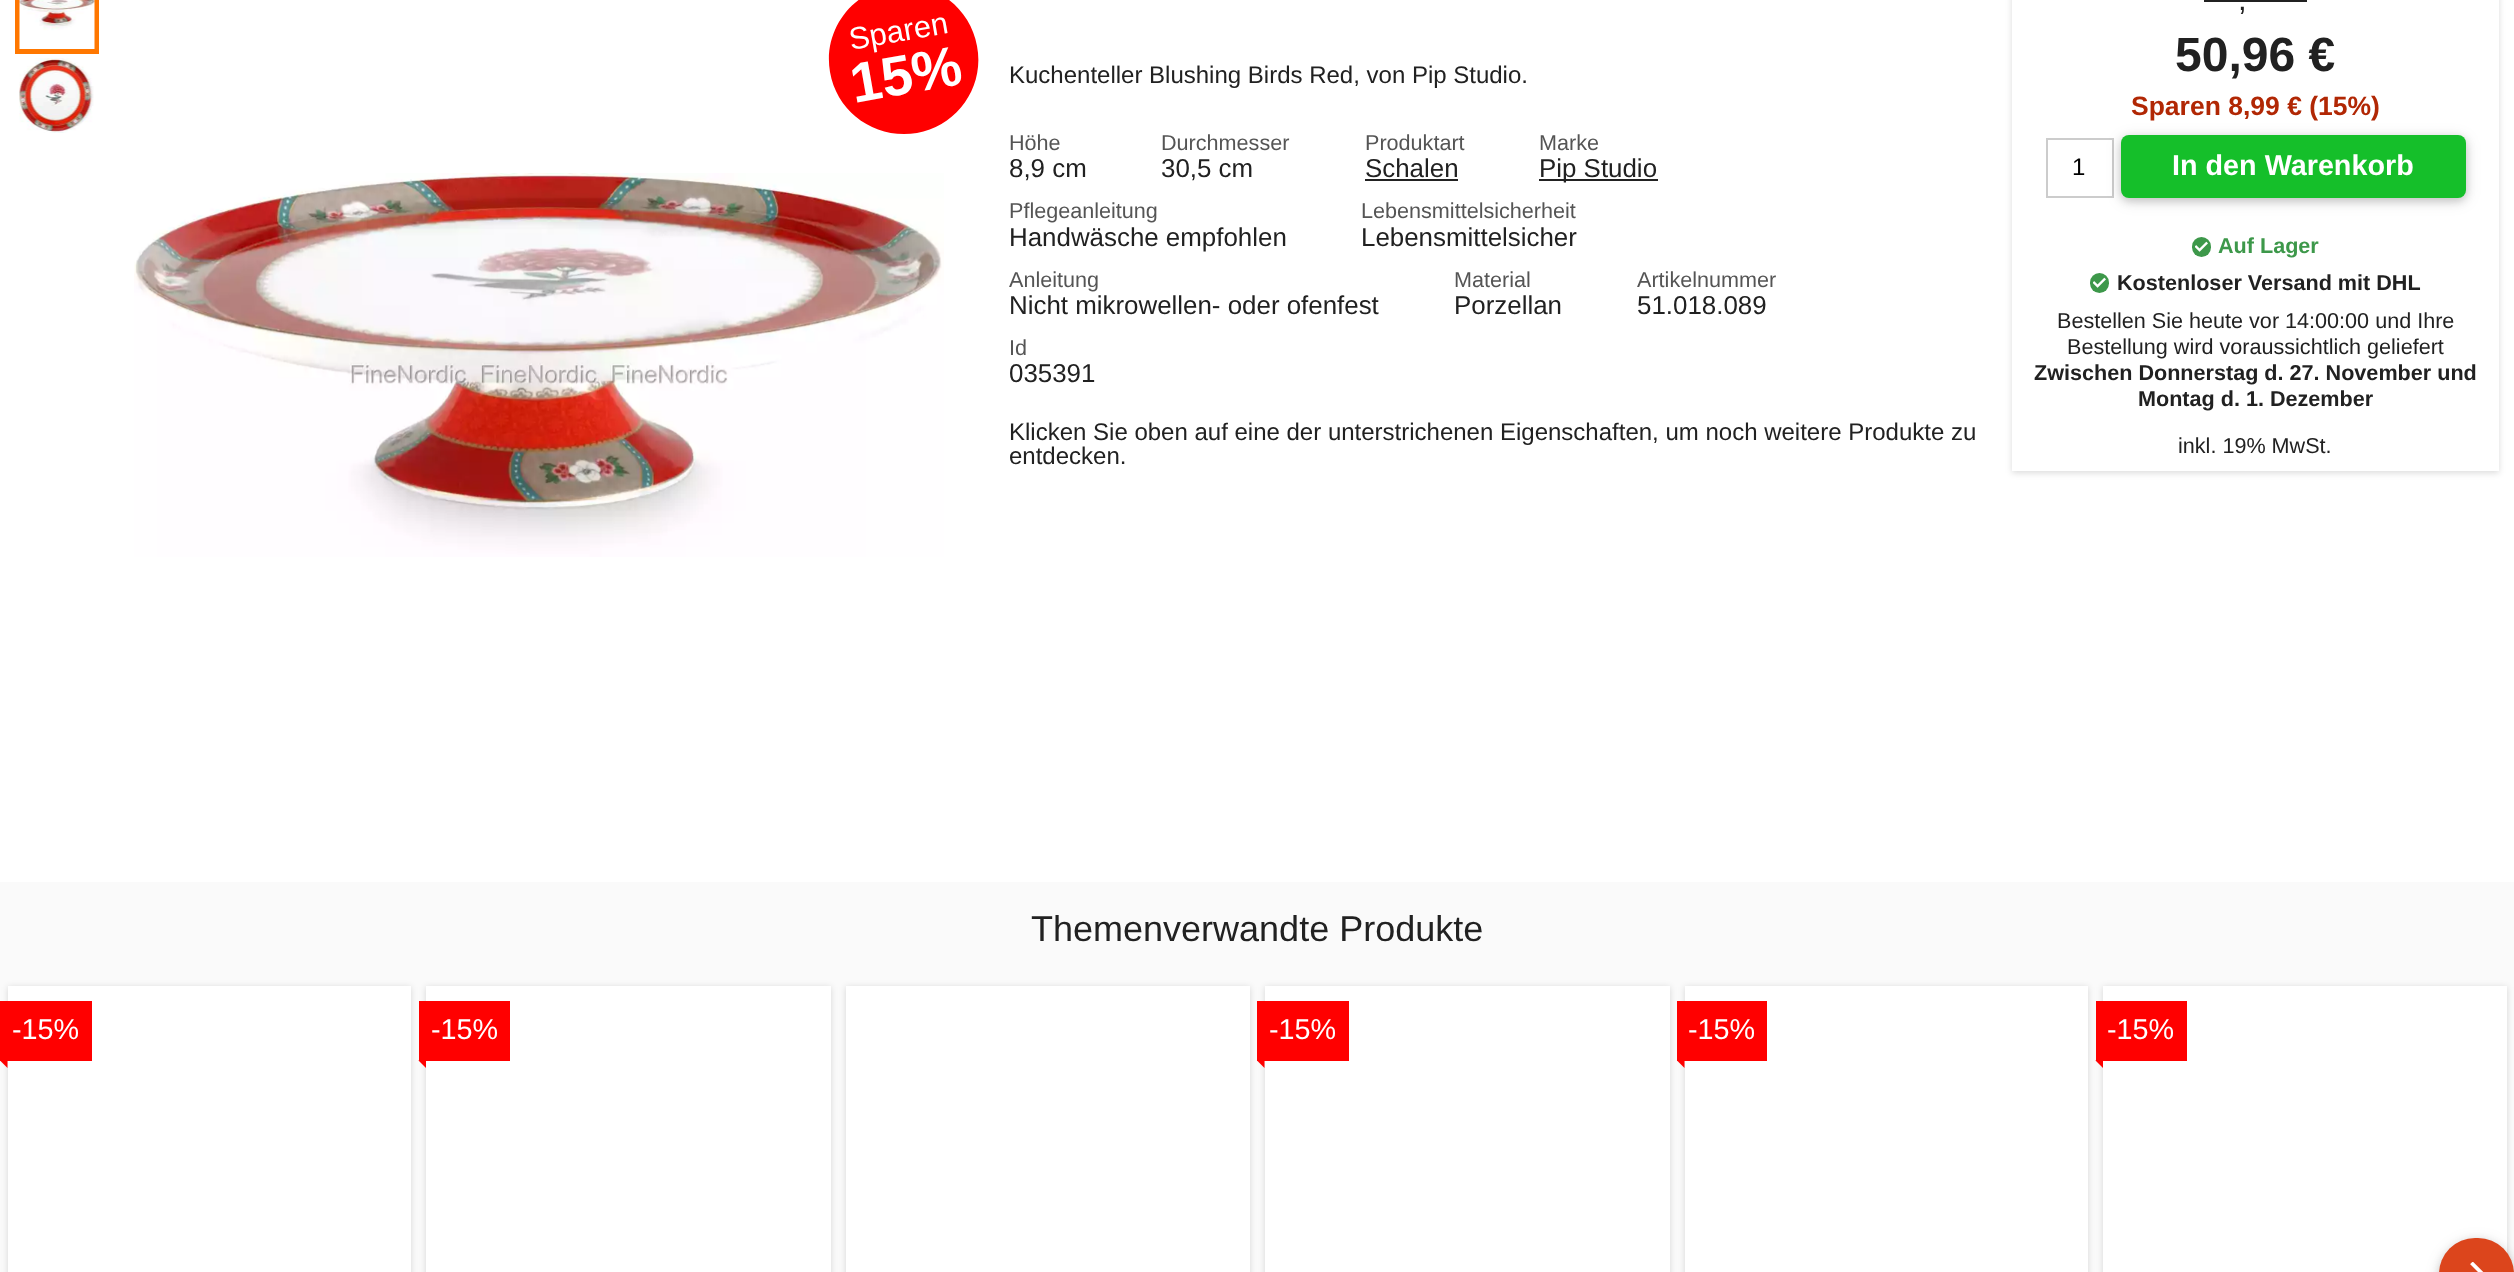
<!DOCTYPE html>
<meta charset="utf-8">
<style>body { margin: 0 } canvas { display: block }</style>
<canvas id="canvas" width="2514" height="1272"></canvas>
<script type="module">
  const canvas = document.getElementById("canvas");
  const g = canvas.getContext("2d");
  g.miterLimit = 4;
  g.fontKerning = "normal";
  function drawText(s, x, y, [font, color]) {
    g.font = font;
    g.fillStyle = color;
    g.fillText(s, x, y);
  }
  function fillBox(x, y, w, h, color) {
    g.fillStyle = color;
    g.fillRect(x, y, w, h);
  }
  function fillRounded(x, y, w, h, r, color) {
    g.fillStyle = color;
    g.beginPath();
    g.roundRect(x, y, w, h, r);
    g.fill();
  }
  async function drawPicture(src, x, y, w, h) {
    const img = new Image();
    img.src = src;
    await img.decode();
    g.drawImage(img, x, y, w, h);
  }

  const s1 = ["24px Liberation Sans", "#212121"];
  const s2 = ["31px Liberation Sans", "#212121"];
  const s3 = ["bold 48px Liberation Sans", "#212121"];
  const s4 = ["bold 26.5px Liberation Sans", "#B12704"];
  const s5 = ["24px Liberation Sans", "#000000"];
  const s6 = ["bold 28.75px Liberation Sans", "#FFFFFF"];
  const s7 = ["bold 21.6px Liberation Sans", "#3D984A"];
  const s8 = ["bold 21.6px Liberation Sans", "#212121"];
  const s9 = ["21.6px Liberation Sans", "#212121"];
  const s10 = ["21.6px Liberation Sans", "#555555"];
  const s11 = ["25.9px Liberation Sans", "#212121"];
  const s12 = ["36px Liberation Sans", "#212121"];
  const s13 = ["28.75px Liberation Sans", "#FFFFFF"];

  fillBox(0, 0, 2514, 1272, "#FFFFFF");
  g.strokeStyle = "#FF7700";
  g.lineWidth = 5;
  g.strokeRect(17.5, -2.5, 79, 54);
  await drawPicture("pic1.png", 19, 0, 76, 49);
  await drawPicture("pic2.png", 19, 58, 75, 75);
  g.fillStyle = "#FF0000";
  g.beginPath();
  g.moveTo(891, -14);
  g.bezierCurveTo(931, -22, 970, 6, 977, 46);
  g.bezierCurveTo(985, 87, 957, 126, 917, 133);
  g.bezierCurveTo(876, 140, 837, 113, 830, 72);
  g.bezierCurveTo(823, 32, 850, -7, 891, -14);
  g.closePath();
  g.fill();
  g.font = "31px Liberation Sans";
  g.fillStyle = "#FFFFFF";
  g.save();
  g.translate(851, 50);
  g.rotate(-10 * Math.PI / 180);
  g.fillText("Sparen", 0, 0);
  g.restore();
  g.font = "bold 56px Liberation Sans";
  g.save();
  g.translate(854, 103);
  g.rotate(-10 * Math.PI / 180);
  g.fillText("15%", 0, 0);
  g.restore();
  await drawPicture("pic3.png", 134, 173, 810, 384);
  drawText("Kuchenteller Blushing Birds Red, von Pip Studio.", 1009, 83, s1);
  g.save();
  g.beginPath();
  g.moveTo(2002, 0);
  g.lineTo(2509, 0);
  g.lineTo(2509, 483);
  g.lineTo(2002, 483);
  g.closePath();
  g.moveTo(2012, -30);
  g.lineTo(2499, -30);
  g.lineTo(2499, 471);
  g.lineTo(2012, 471);
  g.closePath();
  g.clip("evenodd");
  g.fillStyle = "rgba(0, 0, 0, 0.14)";
  g.filter = "blur(3px)";
  g.beginPath();
  g.rect(2012, -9, 487, 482);
  g.fill();
  g.filter = "none";
  g.restore();
  drawText(",", 2238, 10, s2);
  fillBox(2204, 0, 103, 2, "rgba(0, 0, 0, 0.87)");
  drawText("50,96 €", 2175, 71, s3);
  drawText("Sparen 8,99 € (15%)", 2131, 115, s4);
  g.strokeStyle = "#CCCCCC";
  g.lineWidth = 2;
  g.strokeRect(2047, 139, 66, 58);
  drawText("1", 2072, 175, s5);
  g.fillStyle = "rgba(0, 0, 0, 0.12)";
  g.filter = "blur(7.5px)";
  g.beginPath();
  g.roundRect(2121, 138, 345, 63, 8);
  g.fill();
  g.filter = "none";
  g.fillStyle = "rgba(0, 0, 0, 0.16)";
  g.filter = "blur(4px)";
  g.beginPath();
  g.roundRect(2121, 138, 345, 63, 8);
  g.fill();
  g.filter = "none";
  fillRounded(2121, 135, 345, 63, 8, "#15BF2A");
  drawText("In den Warenkorb", 2172, 175, s6);
  fillRounded(2192, 237, 19, 20, 9.5, "#3D984A");
  await drawPicture("pic4.png", 2195, 241, 13, 11);
  drawText("Auf Lager", 2218, 253, s7);
  fillRounded(2090, 273, 19, 20, 9.5, "#3D984A");
  await drawPicture("pic4.png", 2093, 277, 13, 11);
  drawText("Kostenloser Versand mit DHL", 2117, 290, s8);
  drawText("Bestellen Sie heute vor 14:00:00 und Ihre", 2057, 328, s9);
  drawText("Bestellung wird voraussichtlich geliefert", 2067, 354, s9);
  drawText("Zwischen Donnerstag d. 27. November und", 2034, 380, s8);
  drawText("Montag d. 1. Dezember", 2138, 406, s8);
  drawText("inkl. 19% MwSt.", 2178, 453, s9);
  drawText("Höhe", 1009, 150, s10);
  drawText("8,9 cm", 1009, 177, s11);
  drawText("Durchmesser", 1161, 150, s10);
  drawText("30,5 cm", 1161, 177, s11);
  drawText("Produktart", 1365, 150, s10);
  drawText("Schalen", 1365, 177, s11);
  fillBox(1365, 179, 93, 2, "#222222");
  drawText("Marke", 1539, 150, s10);
  fillBox(1539, 179, 119, 2, "#222222");
  drawText("Pip Studio", 1539, 177, s11);
  drawText("Pflegeanleitung", 1009, 218, s10);
  drawText("Handwäsche empfohlen", 1009, 246, s11);
  drawText("Lebensmittelsicherheit", 1361, 218, s10);
  drawText("Lebensmittelsicher", 1361, 246, s11);
  drawText("Anleitung", 1009, 287, s10);
  drawText("Nicht mikrowellen- oder ofenfest", 1009, 314, s11);
  drawText("Material", 1454, 287, s10);
  drawText("Porzellan", 1454, 314, s11);
  drawText("Artikelnummer", 1637, 287, s10);
  drawText("51.018.089", 1637, 314, s11);
  drawText("Id", 1009, 355, s10);
  drawText("035391", 1009, 382, s11);
  drawText("Klicken Sie oben auf eine der unterstrichenen Eigenschaften, um noch weitere Produkte zu", 1009, 440, s1);
  drawText("entdecken.", 1009, 464, s1);
  fillBox(0, 882, 2514, 390, "#FAFAFA");
  drawText("Themenverwandte Produkte", 1031, 941, s12);
  g.fillStyle = "rgba(0, 0, 0, 0.14)";
  g.filter = "blur(3px)";
  g.beginPath();
  g.rect(8, 987, 403, 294);
  g.fill();
  g.filter = "none";
  fillBox(8, 986, 403, 286, "#FFFFFF");
  fillBox(0, 1001, 92, 60, "#FF0000");
  drawText("-15%", 12, 1039, s13);
  g.fillStyle = "#FF0000";
  g.beginPath();
  g.moveTo(7.5, 1053);
  g.lineTo(7.5, 1068);
  g.lineTo(0, 1060.5);
  g.closePath();
  g.fill();
  g.fillStyle = "rgba(0, 0, 0, 0.14)";
  g.filter = "blur(3px)";
  g.beginPath();
  g.rect(426, 987, 405, 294);
  g.fill();
  g.filter = "none";
  fillBox(426, 986, 405, 286, "#FFFFFF");
  fillBox(419, 1001, 91, 60, "#FF0000");
  drawText("-15%", 431, 1039, s13);
  g.fillStyle = "#FF0000";
  g.beginPath();
  g.moveTo(426, 1053);
  g.lineTo(426, 1068);
  g.lineTo(418.5, 1060.5);
  g.closePath();
  g.fill();
  g.fillStyle = "rgba(0, 0, 0, 0.14)";
  g.filter = "blur(3px)";
  g.beginPath();
  g.rect(846, 987, 404, 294);
  g.fill();
  g.filter = "none";
  fillBox(846, 986, 404, 286, "#FFFFFF");
  g.fillStyle = "rgba(0, 0, 0, 0.14)";
  g.filter = "blur(3px)";
  g.beginPath();
  g.rect(1265, 987, 405, 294);
  g.fill();
  g.filter = "none";
  fillBox(1265, 986, 405, 286, "#FFFFFF");
  fillBox(1257, 1001, 92, 60, "#FF0000");
  drawText("-15%", 1269, 1039, s13);
  g.fillStyle = "#FF0000";
  g.beginPath();
  g.moveTo(1264.5, 1053);
  g.lineTo(1264.5, 1068);
  g.lineTo(1257, 1060.5);
  g.closePath();
  g.fill();
  g.fillStyle = "rgba(0, 0, 0, 0.14)";
  g.filter = "blur(3px)";
  g.beginPath();
  g.rect(1685, 987, 403, 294);
  g.fill();
  g.filter = "none";
  fillBox(1685, 986, 403, 286, "#FFFFFF");
  fillBox(1677, 1001, 90, 60, "#FF0000");
  drawText("-15%", 1688, 1039, s13);
  g.fillStyle = "#FF0000";
  g.beginPath();
  g.moveTo(1684.5, 1053);
  g.lineTo(1684.5, 1068);
  g.lineTo(1677, 1060.5);
  g.closePath();
  g.fill();
  g.fillStyle = "rgba(0, 0, 0, 0.14)";
  g.filter = "blur(3px)";
  g.beginPath();
  g.rect(2103, 987, 404, 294);
  g.fill();
  g.filter = "none";
  fillBox(2103, 986, 404, 286, "#FFFFFF");
  fillBox(2096, 1001, 91, 60, "#FF0000");
  drawText("-15%", 2107, 1039, s13);
  g.fillStyle = "#FF0000";
  g.beginPath();
  g.moveTo(2103, 1053);
  g.lineTo(2103, 1068);
  g.lineTo(2095.5, 1060.5);
  g.closePath();
  g.fill();
  g.fillStyle = "rgba(0, 0, 0, 0.12)";
  g.filter = "blur(7.5px)";
  g.beginPath();
  g.roundRect(2439, 1241, 75, 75, 37.5);
  g.fill();
  g.filter = "none";
  g.fillStyle = "rgba(0, 0, 0, 0.16)";
  g.filter = "blur(4px)";
  g.beginPath();
  g.roundRect(2439, 1241, 75, 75, 37.5);
  g.fill();
  g.filter = "none";
  fillRounded(2439, 1238, 75, 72, 37.5, "#DC451C");
  await drawPicture("pic5.png", 2470, 1262, 14, 10);
</script>
